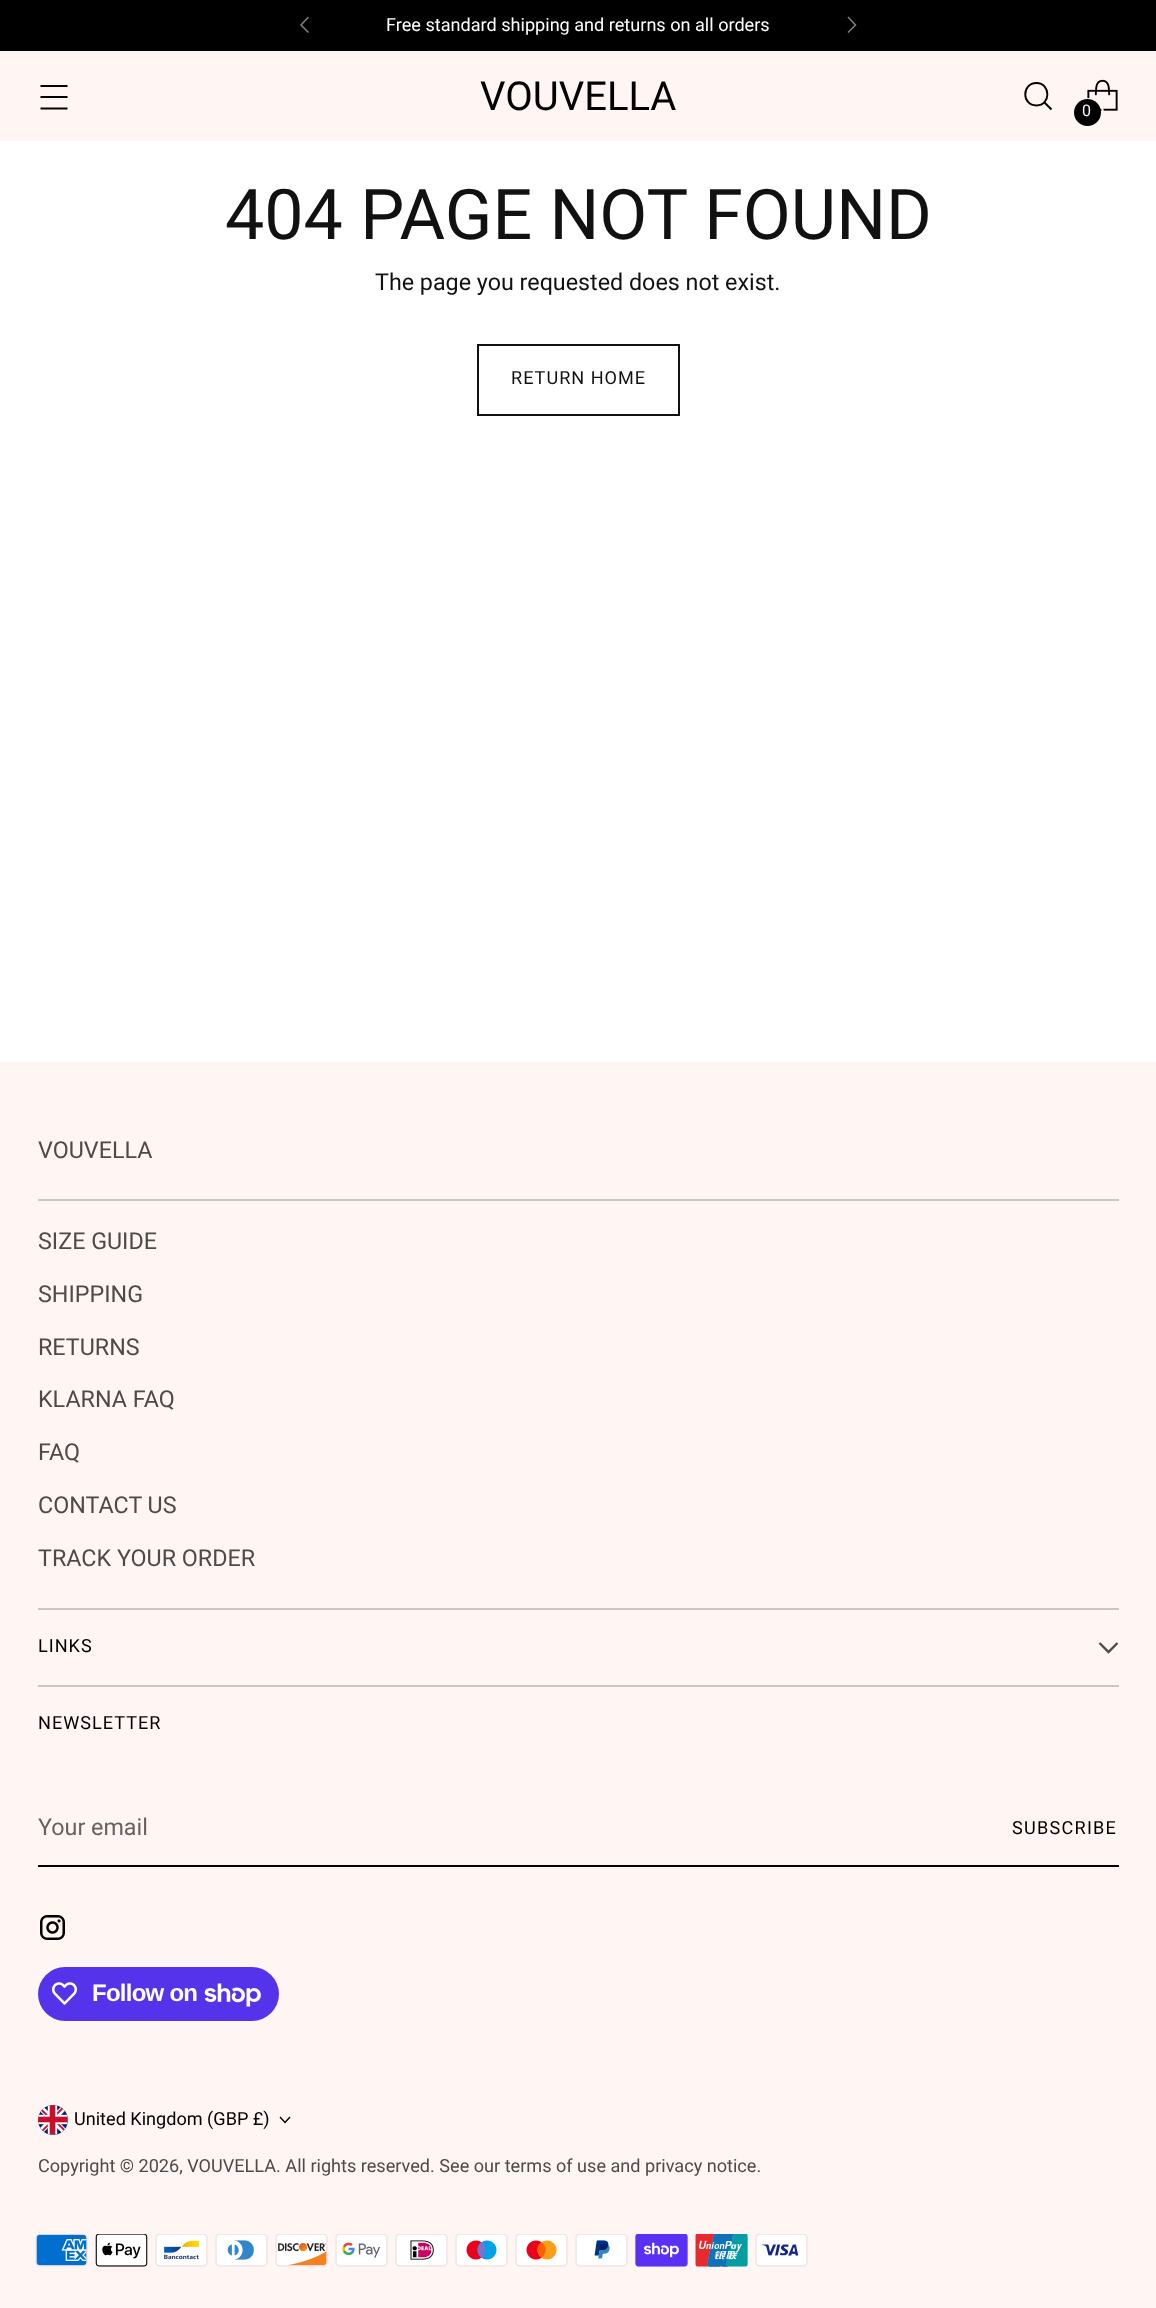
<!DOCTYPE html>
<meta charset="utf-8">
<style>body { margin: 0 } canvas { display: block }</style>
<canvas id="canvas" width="1156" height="2308"></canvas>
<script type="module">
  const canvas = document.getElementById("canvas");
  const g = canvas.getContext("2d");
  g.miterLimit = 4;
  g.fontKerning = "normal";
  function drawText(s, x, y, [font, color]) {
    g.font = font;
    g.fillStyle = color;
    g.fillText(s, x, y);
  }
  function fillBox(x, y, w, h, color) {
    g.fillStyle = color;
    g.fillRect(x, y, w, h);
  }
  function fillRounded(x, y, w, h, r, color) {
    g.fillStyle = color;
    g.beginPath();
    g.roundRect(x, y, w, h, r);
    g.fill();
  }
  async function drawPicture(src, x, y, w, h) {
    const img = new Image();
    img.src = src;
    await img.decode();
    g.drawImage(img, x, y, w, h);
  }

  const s1 = ["18.1px Roboto", "#FFFFFF"];
  const s2 = ["40px Roboto", "#000000"];
  const s3 = ["16px Roboto", "#FFF5F3"];
  const s4 = ["69.9px Roboto", "#111111"];
  const s5 = ["23.3px Roboto", "#111111"];
  const s6 = ["18.1px Roboto", "#111111"];
  const s7 = ["23.3px Roboto", "#4D4A49"];
  const s8 = ["18.1px Roboto", "#000000"];
  const s9 = ["23.3px Roboto", "#666261"];
  const s10 = ["bold 24px Liberation Sans", "#FFFFFF"];
  const s11 = ["18.1px Roboto", "#4D4A49"];

  fillBox(0, 0, 1156, 2308, "#FFFFFF");
  fillBox(0, 0, 1156, 51, "#000000");
  g.beginPath();
  g.moveTo(308.5, 17);
  g.lineTo(301, 25);
  g.lineTo(308.5, 32.5);
  g.strokeStyle = "#808080";
  g.lineWidth = 1.5;
  g.stroke();
  g.beginPath();
  g.moveTo(848, 32.5);
  g.lineTo(855.5, 25);
  g.lineTo(848, 17);
  g.stroke();
  drawText("Free standard shipping and returns on all orders", 386, 31, s1);
  fillBox(0, 51, 1156, 90, "#FFF5F3");
  g.beginPath();
  g.moveTo(40.5, 97);
  g.lineTo(67.5, 97);
  g.moveTo(40.5, 86);
  g.lineTo(67.5, 86);
  g.moveTo(40.5, 108.5);
  g.lineTo(67.5, 108.5);
  g.strokeStyle = "#000000";
  g.lineWidth = 1.9;
  g.stroke();
  drawText("VOUVELLA", 480, 110, s2);
  g.beginPath();
  g.moveTo(1036.5, 105.5);
  g.bezierCurveTo(1051, 105.5, 1051, 83, 1036.5, 83);
  g.bezierCurveTo(1021.5, 83, 1021.5, 105.5, 1036.5, 105.5);
  g.closePath();
  g.lineCap = "round";
  g.stroke();
  g.beginPath();
  g.moveTo(1044.5, 102.5);
  g.lineTo(1051.5, 109.5);
  g.lineCap = "butt";
  g.stroke();
  await drawPicture("pic1.png", 1087, 79, 31, 32);
  g.beginPath();
  g.arc(1088.5, 113.5, 14.5, 0, Math.PI * 2);
  g.strokeStyle = "#FFF5F3";
  g.lineWidth = 2;
  g.stroke();
  g.beginPath();
  g.arc(1087.5, 112.5, 13.5, 0, Math.PI * 2);
  g.fill();
  drawText("0", 1082, 116, s3);
  drawText("404 PAGE NOT FOUND", 225, 239, s4);
  drawText("The page you requested does not exist.", 375, 290, s5);
  g.strokeStyle = "#111111";
  g.strokeRect(478, 345, 201, 70);
  g.letterSpacing = "1px";
  drawText("RETURN HOME", 511, 384, s6);
  fillBox(0, 1062, 1156, 1246, "#FFF5F3");
  fillBox(38, 1199, 1081, 2, "#CCC4C2");
  g.letterSpacing = "0px";
  drawText("VOUVELLA", 38, 1158, s7);
  fillBox(38, 1608, 1081, 2, "#CCC4C2");
  drawText("SIZE GUIDE", 38, 1249, s7);
  drawText("SHIPPING", 38, 1302, s7);
  drawText("RETURNS", 38, 1355, s7);
  drawText("KLARNA FAQ", 38, 1407, s7);
  drawText("FAQ", 38, 1460, s7);
  drawText("CONTACT US", 38, 1513, s7);
  drawText("TRACK YOUR ORDER", 38, 1566, s7);
  fillBox(38, 1685, 1081, 2, "#CCC4C2");
  g.letterSpacing = "1px";
  drawText("LINKS", 38, 1652, s8);
  g.beginPath();
  g.moveTo(1099.5, 1643);
  g.lineTo(1108.5, 1652);
  g.lineTo(1117.5, 1643);
  g.strokeStyle = "#4D4A49";
  g.lineWidth = 2.4;
  g.stroke();
  drawText("NEWSLETTER", 38, 1729, s8);
  fillBox(38, 1865, 1081, 2, "#000000");
  g.letterSpacing = "0px";
  drawText("Your email", 38, 1835, s9);
  g.letterSpacing = "1.25px";
  drawText("SUBSCRIBE", 1012, 1834, s8);
  await drawPicture("pic2.png", 40, 1915, 25, 25);
  fillRounded(38, 1967, 241, 54, 27, "#5433EB");
  await drawPicture("pic3.png", 52, 1982, 25, 23);
  g.letterSpacing = "-0.75px";
  drawText("Follow on", 92, 2001, s10);
  await drawPicture("pic4.png", 204, 1983, 57, 24);
  await drawPicture("pic5.png", 38, 2105, 30, 30);
  g.letterSpacing = "0px";
  drawText("United Kingdom (GBP £)", 74, 2125, s8);
  g.beginPath();
  g.moveTo(280, 2117);
  g.lineTo(285, 2122.5);
  g.lineTo(290, 2117);
  g.strokeStyle = "#000000";
  g.lineWidth = 1.4;
  g.stroke();
  drawText("Copyright © 2026, VOUVELLA. All rights reserved. See our terms of use and privacy notice.", 38, 2172, s11);
  await drawPicture("pic6.png", 35, 2234, 53, 33);
  await drawPicture("pic7.png", 95, 2234, 53, 33);
  await drawPicture("pic8.png", 155, 2234, 53, 33);
  await drawPicture("pic9.png", 215, 2234, 53, 33);
  await drawPicture("pic10.png", 275, 2234, 53, 33);
  await drawPicture("pic11.png", 335, 2234, 53, 33);
  await drawPicture("pic12.png", 395, 2234, 53, 33);
  await drawPicture("pic13.png", 455, 2234, 53, 33);
  await drawPicture("pic14.png", 515, 2234, 53, 33);
  await drawPicture("pic15.png", 575, 2234, 53, 33);
  await drawPicture("pic16.png", 635, 2234, 53, 33);
  await drawPicture("pic17.png", 695, 2234, 53, 33);
  await drawPicture("pic18.png", 755, 2234, 53, 33);
</script>
